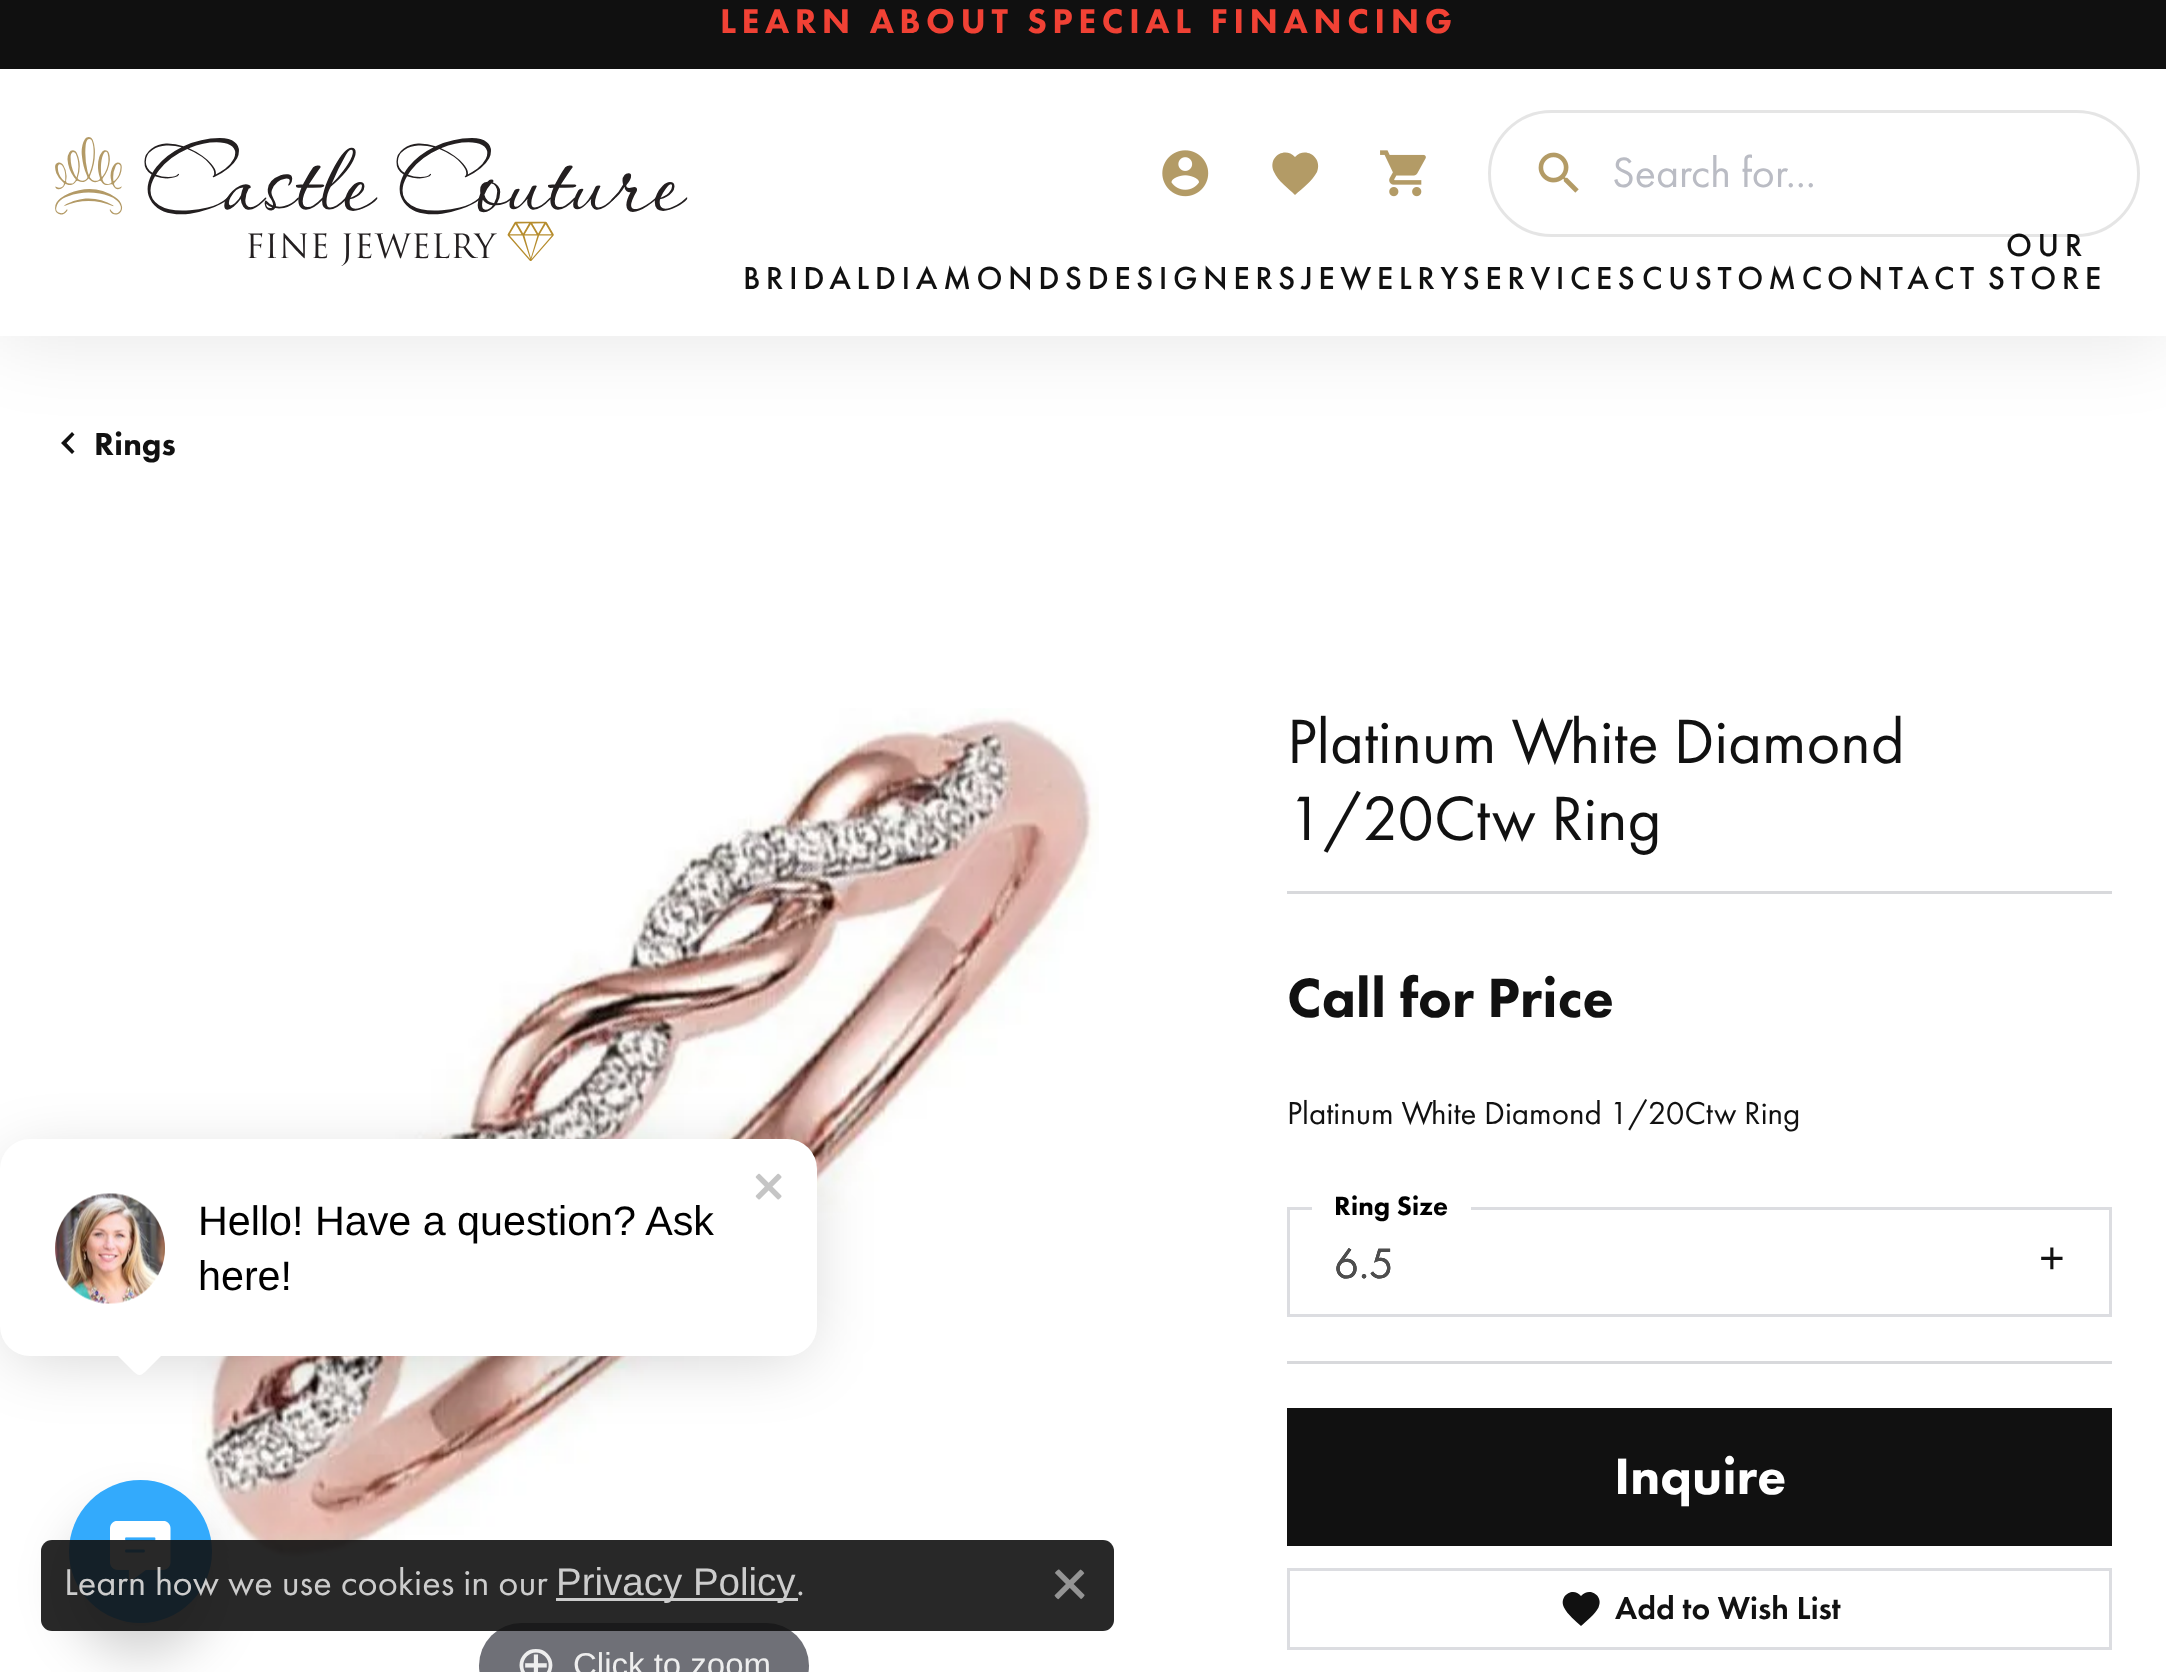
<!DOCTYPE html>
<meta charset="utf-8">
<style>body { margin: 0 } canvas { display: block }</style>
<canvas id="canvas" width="2166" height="1672"></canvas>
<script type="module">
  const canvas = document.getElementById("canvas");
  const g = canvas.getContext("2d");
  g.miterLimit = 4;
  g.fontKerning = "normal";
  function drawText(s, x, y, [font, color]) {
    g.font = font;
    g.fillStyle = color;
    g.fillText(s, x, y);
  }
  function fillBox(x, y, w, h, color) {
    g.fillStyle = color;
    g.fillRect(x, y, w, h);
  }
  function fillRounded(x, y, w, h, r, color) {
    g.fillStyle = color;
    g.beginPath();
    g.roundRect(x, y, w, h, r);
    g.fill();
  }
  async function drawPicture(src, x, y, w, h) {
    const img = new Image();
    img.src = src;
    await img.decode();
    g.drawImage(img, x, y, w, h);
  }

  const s1 = ["900 35.75px Futura PT", "#F44336"];
  const s2 = ["500 33px 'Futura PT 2'", "#111111"];
  const s3 = ["44px Futura PT", "#BABCC4"];
  const s4 = ["900 33px Futura PT", "#111111"];
  const s5 = ["64.75px Futura PT", "#111111"];
  const s6 = ["900 57.25px Futura PT", "#111111"];
  const s7 = ["33px Futura PT", "#111111"];
  const s8 = ["900 27.5px Futura PT", "#000000"];
  const s9 = ["44px Futura PT", "#111111"];
  const s10 = ["44px Liberation Sans", "#111111"];
  const s11 = ["44px Futura PT", "#4E4E4E"];
  const s12 = ["900 53px Futura PT", "#FFFFFF"];
  const s13 = ["500 33px Futura PT", "#111111"];
  const s14 = ["50px DejaVu Sans", "#EEEEEE"];
  const s15 = ["33px Liberation Sans", "#EEEEEE"];
  const s16 = ["41.25px Liberation Sans", "#000000"];
  const s17 = ["38.5px Futura PT", "#CCCCCC"];
  const s18 = ["38.5px Liberation Sans", "#CCCCCC"];

  fillBox(0, 0, 2166, 1672, "#111111");
  g.letterSpacing = "5.5px";
  drawText("LEARN ABOUT SPECIAL FINANCING", 720, 33, s1);
  fillBox(0, 336, 2166, 1336, "#FFFFFF");
  g.fillStyle = "#111111";
  g.beginPath();
  g.moveTo(74.5, 451.5);
  g.lineTo(66.5, 443);
  g.lineTo(74.5, 434.5);
  g.lineTo(72, 432);
  g.lineTo(61, 443);
  g.lineTo(72, 454);
  g.closePath();
  g.fill();
  g.fillStyle = "rgba(0, 0, 0, 0.1)";
  g.filter = "blur(41px)";
  g.beginPath();
  g.rect(-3, 66, 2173, 272);
  g.fill();
  g.filter = "none";
  fillBox(0, 69, 2166, 267, "#FFFFFF");
  await drawPicture("pic1.png", 55, 137, 633, 129);
  await drawPicture("pic2.png", 1162, 150, 47, 47);
  g.fillStyle = "#B39B66";
  g.beginPath();
  g.moveTo(1295, 195);
  g.bezierCurveTo(1288, 188, 1278, 181, 1274, 172);
  g.bezierCurveTo(1267, 157, 1285, 146, 1295, 157);
  g.bezierCurveTo(1305, 146, 1323, 157, 1317, 172);
  g.bezierCurveTo(1312, 181, 1303, 188, 1295, 195);
  g.closePath();
  g.fill();
  await drawPicture("pic3.png", 1380, 150, 46, 47);
  drawText("OUR", 2006, 256, s2);
  g.beginPath();
  g.roundRect(1489.5, 111.5, 649, 124, 62);
  g.strokeStyle = "rgba(0, 0, 0, 0.1)";
  g.lineWidth = 3;
  g.stroke();
  await drawPicture("pic4.png", 1538, 152, 41, 41);
  g.letterSpacing = "0px";
  drawText("Search for...", 1612, 187, s3);
  g.letterSpacing = "5.5px";
  drawText("BRIDALDIAMONDSDESIGNERSJEWELRYSERVICES", 743, 289, s2);
  drawText("CUSTOMCONTACT", 1642, 289, s2);
  drawText("STORE", 1988, 289, s2);
  g.letterSpacing = "0px";
  drawText("Rings", 94, 455, s4);
  drawText("Platinum White Diamond", 1287, 763, s5);
  drawText("1/20Ctw Ring", 1287, 840, s5);
  fillBox(1287, 891, 825, 3, "#D8D9DC");
  drawText("Call for Price", 1287, 1017, s6);
  drawText("Platinum White Diamond 1/20Ctw Ring", 1287, 1124, s7);
  g.strokeStyle = "#DCDDE1";
  g.strokeRect(1288.5, 1208.5, 822, 107);
  fillBox(1312, 1207, 159, 3, "#FFFFFF");
  drawText("Ring Size", 1334, 1215, s8);
  drawText("6.5", 1334, 1278, s9);
  drawText("+", 2039, 1273, s10);
  drawText("6.5", 1334, 1278, s11);
  fillBox(1287, 1361, 825, 3, "#D8D9DC");
  fillBox(1287, 1408, 825, 138, "#111111");
  drawText("Inquire", 1614, 1494, s12);
  g.strokeRect(1288.5, 1569.5, 822, 79);
  g.fillStyle = "#111111";
  g.beginPath();
  g.moveTo(1581, 1626);
  g.bezierCurveTo(1575.5, 1621, 1567.5, 1614.5, 1564, 1607.5);
  g.bezierCurveTo(1558.5, 1596, 1573, 1586.5, 1581, 1596);
  g.bezierCurveTo(1589.5, 1586.5, 1604, 1596, 1598.5, 1607.5);
  g.bezierCurveTo(1595, 1614.5, 1587, 1620.5, 1581, 1626);
  g.closePath();
  g.fill();
  drawText("Add to Wish List", 1615, 1619, s13);
  await drawPicture("pic5.png", 192, 708, 907, 873);
  fillRounded(479, 1623, 330, 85, 42.5, "#6F7077");
  drawText("⊕", 515, 1681, s14);
  drawText("Click to zoom", 573, 1676, s15);
  g.fillStyle = "rgba(0, 0, 0, 0.18)";
  g.filter = "blur(33px)";
  g.beginPath();
  g.roundRect(11, 1161, 795, 195, 19);
  g.fill();
  g.filter = "none";
  fillRounded(0, 1139, 817, 217, 30, "#FFFFFF");
  await drawPicture("pic6.png", 755, 1173, 27, 27);
  await drawPicture("pic7.png", 55, 1193, 110, 111);
  drawText("Hello! Have a question? Ask", 198, 1235, s16);
  drawText("here!", 198, 1290, s16);
  g.fillStyle = "#FFFFFF";
  g.beginPath();
  g.moveTo(110, 1348);
  g.lineTo(131, 1369);
  g.bezierCurveTo(139, 1377, 140, 1377, 148, 1369);
  g.lineTo(169, 1348);
  g.closePath();
  g.fill("evenodd");
  g.fillStyle = "rgba(0, 0, 0, 0.18)";
  g.filter = "blur(26px)";
  g.beginPath();
  g.roundRect(69, 1513, 143, 143, 71.5);
  g.fill();
  g.filter = "none";
  g.fillStyle = "#33AAFC";
  g.beginPath();
  g.arc(140.5, 1551.5, 71.5, 0, Math.PI * 2);
  g.fill();
  await drawPicture("pic8.png", 110, 1521, 61, 60);
  fillRounded(41, 1540, 1073, 91, 11, "rgba(17, 17, 17, 0.9)");
  drawText("Learn how we use cookies in our", 64, 1595, s17);
  fillBox(556, 1598, 242, 3, "#CCCCCC");
  drawText("Privacy Policy", 556, 1595, s18);
  drawText(".", 796, 1595, s17);
  await drawPicture("pic9.png", 1054, 1569, 31, 31);
</script>
